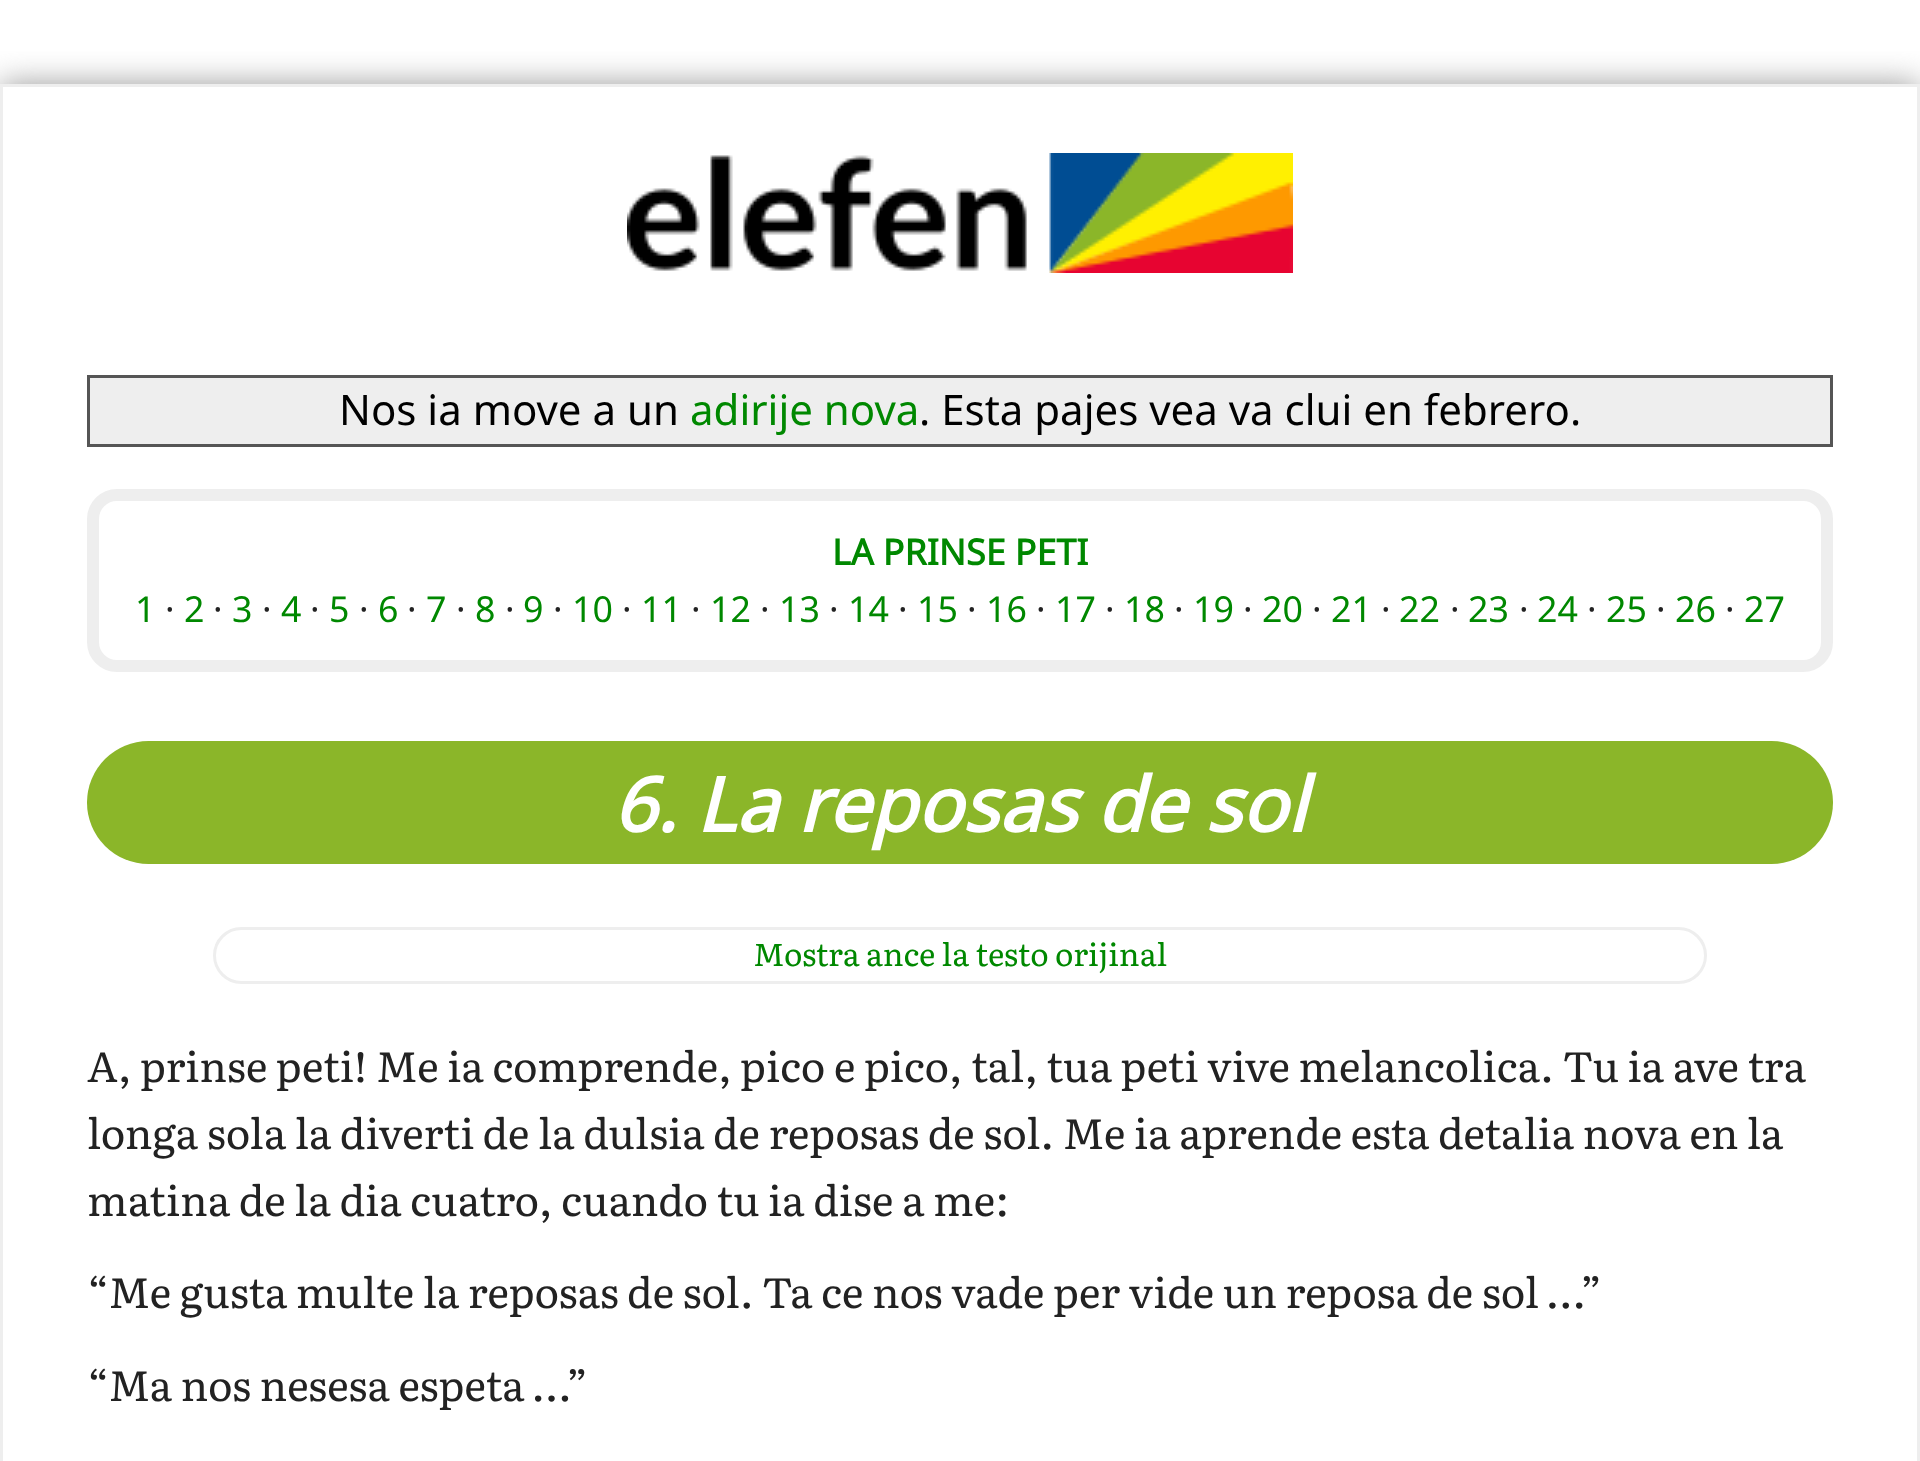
<!DOCTYPE html>
<meta charset="utf-8">
<style>body { margin: 0 } canvas { display: block }</style>
<canvas id="canvas" width="1920" height="1461"></canvas>
<script type="module">
  const canvas = document.getElementById("canvas");
  const g = canvas.getContext("2d");
  g.miterLimit = 4;
  g.fontKerning = "normal";
  function drawText(s, x, y, [font, color]) {
    g.font = font;
    g.fillStyle = color;
    g.fillText(s, x, y);
  }
  function fillBox(x, y, w, h, color) {
    g.fillStyle = color;
    g.fillRect(x, y, w, h);
  }
  function fillRounded(x, y, w, h, r, color) {
    g.fillStyle = color;
    g.beginPath();
    g.roundRect(x, y, w, h, r);
    g.fill();
  }
  async function drawPicture(src, x, y, w, h) {
    const img = new Image();
    img.src = src;
    await img.decode();
    g.drawImage(img, x, y, w, h);
  }

  const s1 = ["42px Noto Sans", "#000000"];
  const s2 = ["42px Noto Sans", "#008800"];
  const s3 = ["bold 35.75px Noto Sans", "#008800"];
  const s4 = ["35.75px Noto Sans", "#008800"];
  const s5 = ["35.75px Noto Sans", "#222222"];
  const s6 = ["italic bold 75.5px Noto Sans", "#FFFFFF"];
  const s7 = ["31.5px Literata", "#008800"];
  const s8 = ["42px Literata", "#222222"];

  fillBox(0, 0, 1920, 1461, "#FFFFFF");
  g.save();
  g.beginPath();
  g.rect(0, 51, 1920, 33);
  g.clip();
  g.fillStyle = "#999999";
  g.filter = "blur(16px)";
  g.beginPath();
  g.rect(0, 84, 1920, 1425);
  g.fill();
  g.filter = "none";
  g.restore();
  g.strokeStyle = "#EEEEEE";
  g.lineWidth = 3;
  g.strokeRect(1.5, 85.5, 1917, 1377);
  await drawPicture("pic1.png", 627, 153, 666, 120);
  g.fillStyle = "#EEEEEE";
  g.beginPath();
  g.rect(88.5, 376.5, 1743, 69);
  g.fill();
  g.strokeStyle = "#555555";
  g.stroke();
  drawText("Nos ia move a un", 339, 425, s1);
  drawText("adirije nova", 690, 425, s2);
  drawText(". Esta pajes vea va clui en febrero.", 919, 425, s1);
  g.beginPath();
  g.roundRect(93, 495, 1734, 171, 24);
  g.strokeStyle = "#EEEEEE";
  g.lineWidth = 12;
  g.stroke();
  drawText("LA PRINSE PETI", 832, 565, s3);
  drawText("1", 135, 622, s4);
  drawText("·", 165, 622, s5);
  drawText("2", 184, 622, s4);
  drawText("·", 213, 622, s5);
  drawText("3", 232, 622, s4);
  drawText("·", 262, 622, s5);
  drawText("4", 281, 622, s4);
  drawText("·", 310, 622, s5);
  drawText("5", 329, 622, s4);
  drawText("·", 359, 622, s5);
  drawText("6", 378, 622, s4);
  drawText("·", 407, 622, s5);
  drawText("7", 426, 622, s4);
  drawText("·", 456, 622, s5);
  drawText("8", 475, 622, s4);
  drawText("·", 505, 622, s5);
  drawText("9", 523, 622, s4);
  drawText("·", 553, 622, s5);
  drawText("10", 572, 622, s4);
  drawText("·", 622, 622, s5);
  drawText("11", 641, 622, s4);
  drawText("·", 691, 622, s5);
  drawText("12", 710, 622, s4);
  drawText("·", 760, 622, s5);
  drawText("13", 779, 622, s4);
  drawText("·", 829, 622, s5);
  drawText("14", 848, 622, s4);
  drawText("·", 898, 622, s5);
  drawText("15", 917, 622, s4);
  drawText("·", 967, 622, s5);
  drawText("16", 986, 622, s4);
  drawText("·", 1036, 622, s5);
  drawText("17", 1055, 622, s4);
  drawText("·", 1105, 622, s5);
  drawText("18", 1124, 622, s4);
  drawText("·", 1174, 622, s5);
  drawText("19", 1193, 622, s4);
  drawText("·", 1243, 622, s5);
  drawText("20", 1262, 622, s4);
  drawText("·", 1312, 622, s5);
  drawText("21", 1331, 622, s4);
  drawText("·", 1381, 622, s5);
  drawText("22", 1399, 622, s4);
  drawText("·", 1450, 622, s5);
  drawText("23", 1468, 622, s4);
  drawText("·", 1519, 622, s5);
  drawText("24", 1537, 622, s4);
  drawText("·", 1587, 622, s5);
  drawText("25", 1606, 622, s4);
  drawText("·", 1656, 622, s5);
  drawText("26", 1675, 622, s4);
  drawText("·", 1725, 622, s5);
  drawText("27", 1744, 622, s4);
  fillRounded(87, 741, 1746, 123, 61.5, "#8BB629");
  drawText("6. La reposas de sol", 613, 832, s6);
  g.beginPath();
  g.roundRect(214.5, 928.5, 1491, 54, 27);
  g.lineWidth = 3;
  g.stroke();
  drawText("Mostra ance la testo orijinal", 753, 966, s7);
  drawText("A, prinse peti! Me ia comprende, pico e pico, tal, tua peti vive melancolica. Tu ia ave tra", 87, 1082, s8);
  drawText("longa sola la diverti de la dulsia de reposas de sol. Me ia aprende esta detalia nova en la", 87, 1149, s8);
  drawText("matina de la dia cuatro, cuando tu ia dise a me:", 87, 1216, s8);
  drawText("“Me gusta multe la reposas de sol. Ta ce nos vade per vide un reposa de sol …”", 87, 1308, s8);
  drawText("“Ma nos nesesa espeta …”", 87, 1401, s8);
</script>
